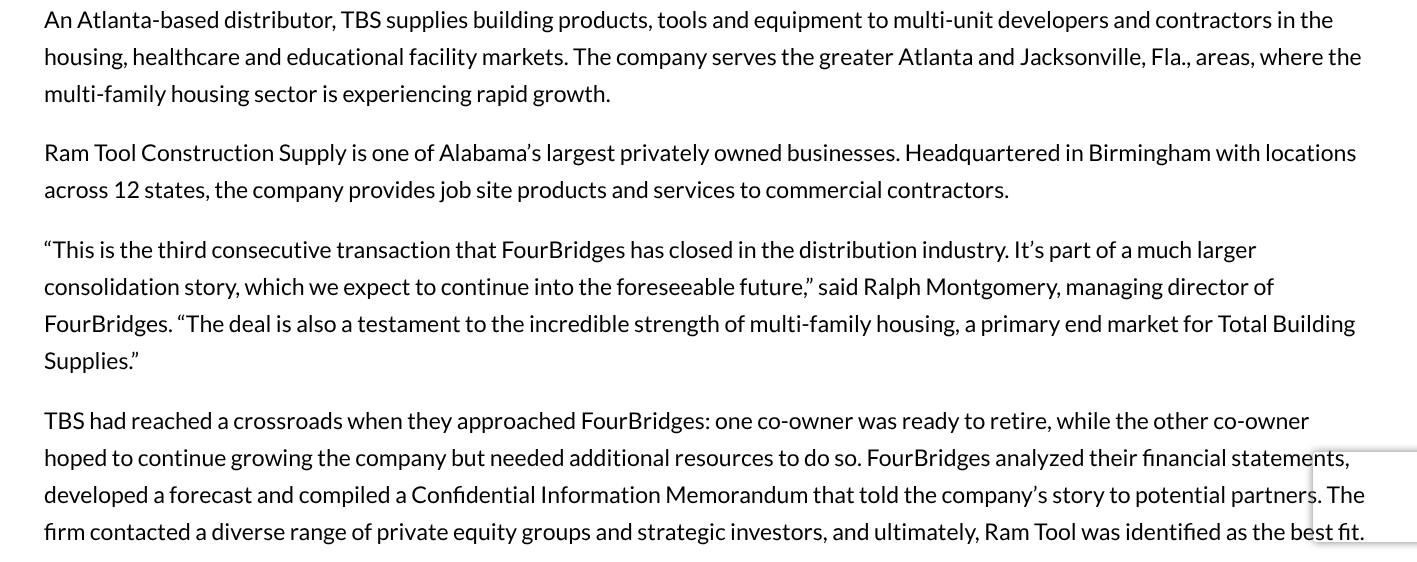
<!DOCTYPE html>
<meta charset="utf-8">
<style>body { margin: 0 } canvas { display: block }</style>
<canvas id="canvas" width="1417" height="562"></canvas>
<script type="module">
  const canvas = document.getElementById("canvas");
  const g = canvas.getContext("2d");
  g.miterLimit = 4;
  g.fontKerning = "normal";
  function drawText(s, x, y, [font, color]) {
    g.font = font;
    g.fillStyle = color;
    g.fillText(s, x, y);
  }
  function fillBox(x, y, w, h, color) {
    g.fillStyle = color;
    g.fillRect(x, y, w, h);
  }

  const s1 = ["23.07px Lato", "#000000"];

  fillBox(0, 0, 1417, 562, "#FFFFFF");
  drawText("An Atlanta-based distributor, TBS supplies building products, tools and equipment to multi-unit developers and contractors in the", 44, 28, s1);
  drawText("housing, healthcare and educational facility markets. The company serves the greater Atlanta and Jacksonville, Fla., areas, where the", 44, 65, s1);
  drawText("multi-family housing sector is experiencing rapid growth.", 44, 102, s1);
  drawText("Ram Tool Construction Supply is one of Alabama’s largest privately owned businesses. Headquartered in Birmingham with locations", 44, 161, s1);
  drawText("across 12 states, the company provides job site products and services to commercial contractors.", 44, 198, s1);
  drawText("“This is the third consecutive transaction that FourBridges has closed in the distribution industry. It’s part of a much larger", 44, 258, s1);
  drawText("consolidation story, which we expect to continue into the foreseeable future,” said Ralph Montgomery, managing director of", 44, 295, s1);
  drawText("FourBridges. “The deal is also a testament to the incredible strength of multi-family housing, a primary end market for Total Building", 44, 332, s1);
  drawText("Supplies.”", 44, 369, s1);
  drawText("TBS had reached a crossroads when they approached FourBridges: one co-owner was ready to retire, while the other co-owner", 44, 429, s1);
  drawText("hoped to continue growing the company but needed additional resources to do so. FourBridges analyzed their financial statements,", 44, 466, s1);
  drawText("developed a forecast and compiled a Confidential Information Memorandum that told the company’s story to potential partners. The", 44, 503, s1);
  drawText("firm contacted a diverse range of private equity groups and strategic investors, and ultimately, Ram Tool was identified as the best fit.", 44, 540, s1);
  g.save();
  g.beginPath();
  g.moveTo(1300, 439);
  g.lineTo(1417, 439);
  g.lineTo(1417, 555);
  g.lineTo(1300, 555);
  g.closePath();
  g.moveTo(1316, 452);
  g.lineTo(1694, 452);
  g.bezierCurveTo(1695.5, 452, 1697, 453.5, 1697, 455);
  g.lineTo(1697, 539);
  g.bezierCurveTo(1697, 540.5, 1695.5, 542, 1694, 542);
  g.lineTo(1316, 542);
  g.bezierCurveTo(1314.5, 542, 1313, 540.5, 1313, 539);
  g.lineTo(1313, 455);
  g.bezierCurveTo(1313, 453.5, 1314.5, 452, 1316, 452);
  g.closePath();
  g.clip("evenodd");
  g.fillStyle = "#808080";
  g.filter = "blur(4px)";
  g.beginPath();
  g.roundRect(1313, 452, 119, 90, 3);
  g.fill();
  g.filter = "none";
  g.restore();
</script>
